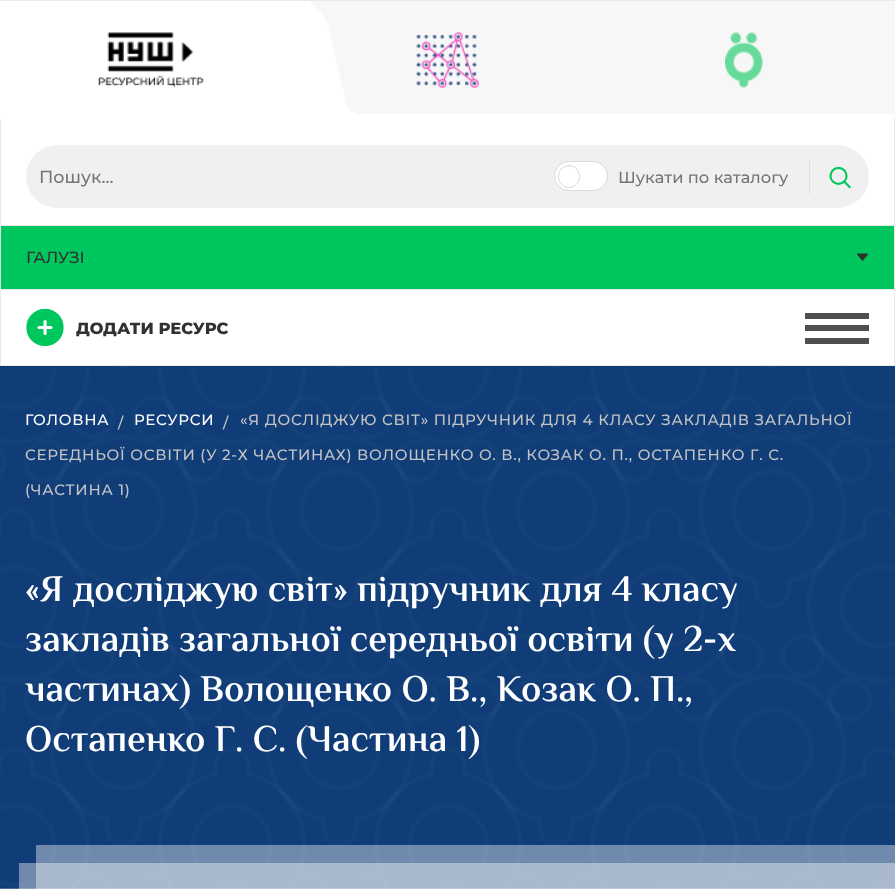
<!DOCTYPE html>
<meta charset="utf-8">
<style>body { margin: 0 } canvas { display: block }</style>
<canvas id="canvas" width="895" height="889"></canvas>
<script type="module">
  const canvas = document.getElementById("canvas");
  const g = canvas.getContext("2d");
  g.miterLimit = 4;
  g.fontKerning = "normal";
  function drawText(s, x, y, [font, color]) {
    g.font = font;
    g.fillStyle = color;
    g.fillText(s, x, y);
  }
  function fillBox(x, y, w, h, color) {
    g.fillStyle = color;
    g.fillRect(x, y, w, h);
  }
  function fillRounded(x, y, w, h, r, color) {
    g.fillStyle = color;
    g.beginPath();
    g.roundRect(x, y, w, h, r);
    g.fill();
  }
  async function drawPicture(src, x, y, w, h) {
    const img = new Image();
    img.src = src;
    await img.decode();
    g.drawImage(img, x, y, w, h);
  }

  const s1 = ["500 17.5px Montserrat", "#757575"];
  const s2 = ["500 16.25px Montserrat", "#757575"];
  const s3 = ["500 16.25px Montserrat", "#313131"];
  const s4 = ["800 16.25px Montserrat", "#313131"];
  const s5 = ["500 15px Montserrat", "#C4C4C4"];
  const s6 = ["500 15px Montserrat", "#FFFFFF"];
  const s7 = ["600 37.5px El Messiri", "#FFFFFF"];

  fillBox(0, 0, 895, 889, "#FFFFFF");
  fillBox(311, 1, 273, 113, "#F7F7F7");
  g.strokeStyle = "#EAEAEA";
  g.strokeRect(0.5, 0.5, 894, 365);
  fillBox(0, 1, 1, 118, "#FFFFFF");
  g.beginPath();
  g.moveTo(298, 1);
  g.bezierCurveTo(311, 1, 325, 12, 328, 26);
  g.lineTo(350, 119);
  g.lineTo(300, 119);
  g.lineTo(278, 26);
  g.bezierCurveTo(275, 12, 284, 1, 298, 1);
  g.closePath();
  g.fill();
  await drawPicture("pic1.png", 98, 32, 106, 56);
  g.beginPath();
  g.moveTo(357.5, 125);
  g.bezierCurveTo(344, 125.5, 332, 115, 331.5, 101.5);
  g.strokeStyle = "#FFFFFF";
  g.lineWidth = 25;
  g.stroke();
  await drawPicture("pic2.png", 416, 32, 63, 56);
  fillBox(584, 1, 311, 118, "#F7F7F7");
  await drawPicture("pic3.png", 725, 32, 38, 56);
  fillBox(584, 114, 310, 5, "#FFFFFF");
  fillRounded(26, 145, 843, 63, 31.5, "#F0F0F0");
  drawText("Пошук...", 39, 183, s1);
  g.fillStyle = "#FFFFFF";
  g.beginPath();
  g.roundRect(554.5, 161.5, 53, 29, 14.5);
  g.fill();
  g.strokeStyle = "#D9D9D9";
  g.lineWidth = 1;
  g.stroke();
  g.beginPath();
  g.roundRect(558.5, 165.5, 21, 22, 10.5);
  g.stroke();
  drawText("Шукати по каталогу", 618, 183, s2);
  fillBox(809, 160, 1, 34, "#E0E0E0");
  await drawPicture("pic4.png", 829, 166, 22, 23);
  fillBox(1, 226, 893, 63, "#00C65E");
  fillBox(1, 225, 893, 1, "#E9E9E9");
  fillBox(1, 289, 893, 1, "#E9E9E9");
  drawText("ГАЛУЗІ", 26, 263, s3);
  await drawPicture("pic5.png", 857, 253, 11, 8);
  await drawPicture("pic6.png", 26, 308, 38, 39);
  drawText("ДОДАТИ РЕСУРС", 76, 334, s4);
  fillBox(805, 313, 64, 6, "#4F4F4F");
  fillBox(805, 325, 64, 6, "#4F4F4F");
  fillBox(805, 338, 64, 6, "#4F4F4F");
  await drawPicture("pic7.png", 0, 366, 895, 523);
  g.letterSpacing = "0.75px";
  drawText("/", 223, 428, s5);
  drawText("«Я ДОСЛІДЖУЮ СВІТ» ПІДРУЧНИК ДЛЯ 4 КЛАСУ ЗАКЛАДІВ ЗАГАЛЬНОЇ", 240, 425, s5);
  drawText("СЕРЕДНЬОЇ ОСВІТИ (У 2-Х ЧАСТИНАХ) ВОЛОЩЕНКО О. В., КОЗАК О. П., ОСТАПЕНКО Г. С.", 25, 460, s5);
  drawText("(ЧАСТИНА 1)", 25, 495, s5);
  drawText("ГОЛОВНА", 25, 425, s6);
  drawText("/", 118, 428, s5);
  drawText("РЕСУРСИ", 134, 425, s6);
  g.letterSpacing = "0px";
  drawText("«Я досліджую світ» підручник для 4 класу", 25, 601, s7);
  drawText("закладів загальної середньої освіти (у 2-х", 25, 651, s7);
  drawText("частинах) Волощенко О. В., Козак О. П.,", 25, 701, s7);
  drawText("Остапенко Г. С. (Частина 1)", 25, 751, s7);
  fillBox(36, 845, 859, 44, "rgba(255, 255, 255, 0.4)");
  fillBox(19, 863, 876, 26, "rgba(255, 255, 255, 0.4)");
</script>
